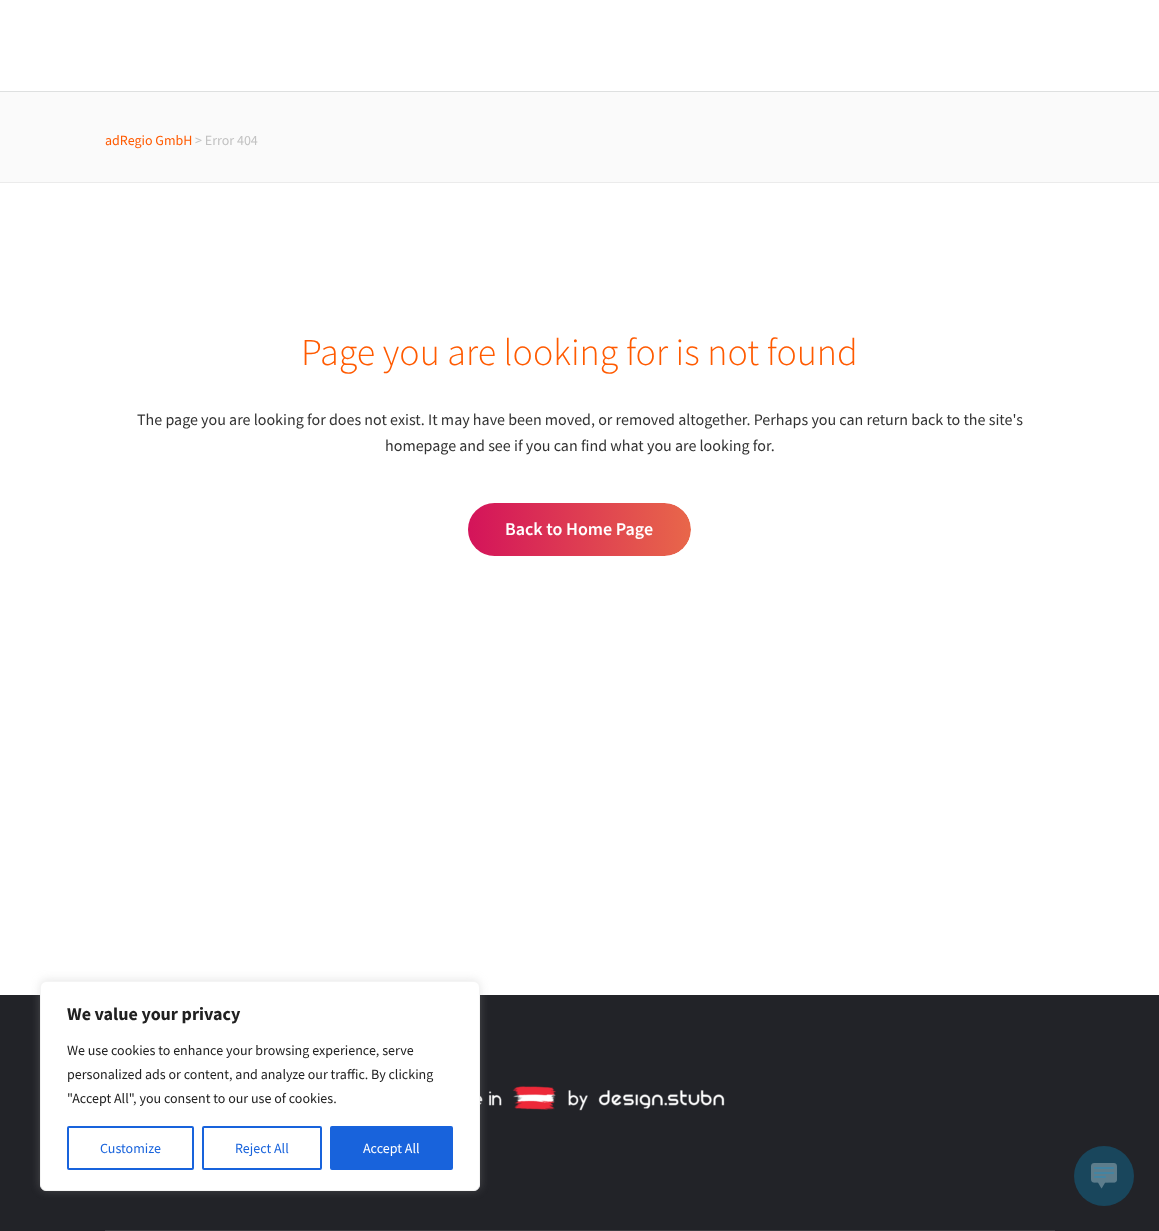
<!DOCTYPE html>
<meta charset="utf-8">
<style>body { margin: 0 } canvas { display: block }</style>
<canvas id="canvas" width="1159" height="1231"></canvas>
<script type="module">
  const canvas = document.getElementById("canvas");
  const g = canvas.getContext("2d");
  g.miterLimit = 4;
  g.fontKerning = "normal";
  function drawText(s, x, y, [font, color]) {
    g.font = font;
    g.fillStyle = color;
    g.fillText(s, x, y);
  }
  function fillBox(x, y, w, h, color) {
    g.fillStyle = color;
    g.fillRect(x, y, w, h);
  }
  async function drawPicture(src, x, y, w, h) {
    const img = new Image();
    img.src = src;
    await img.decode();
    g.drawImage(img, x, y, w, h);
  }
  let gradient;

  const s1 = ["14px Source Sans Pro", "#FF5A00"];
  const s2 = ["14px Source Sans Pro", "#C2C2C2"];
  const s3 = ["300 38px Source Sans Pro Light", "#FF5A00"];
  const s4 = ["16px Source Sans Pro", "#333333"];
  const s5 = ["600 18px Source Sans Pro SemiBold", "#FFFFFF"];
  const s6 = ["bold 18px Source Sans Pro", "#212121"];
  const s7 = ["14px Source Sans Pro", "#212121"];
  const s8 = ["14px Source Sans Pro", "#1863DC"];
  const s9 = ["14px Source Sans Pro", "#FFFFFF"];

  fillBox(0, 0, 1159, 1231, "#FFFFFF");
  fillBox(0, 91, 1159, 1, "#DEE0E0");
  fillBox(0, 92, 1159, 90, "#FAFAFA");
  fillBox(0, 182, 1159, 1, "#EBEBEB");
  drawText("adRegio GmbH", 105, 145, s1);
  drawText("> Error 404", 195, 145, s2);
  drawText("Page you are looking for is not found", 301, 365, s3);
  drawText("The page you are looking for does not exist. It may have been moved, or removed altogether. Perhaps you can return back to the site's", 137, 425, s4);
  drawText("homepage and see if you can find what you are looking for.", 385, 451, s4);
  g.save();
  g.beginPath();
  g.roundRect(468, 503, 223, 53, 26.5);
  g.clip();
  gradient = g.createLinearGradient(32, 530, 470, 530);
  gradient.addColorStop(0, "#D4145A");
  gradient.addColorStop(0.5, "#E8664A");
  gradient.addColorStop(1, "#D4145A");
  g.fillStyle = gradient;
  g.fillRect(468, 519, 2, 21);
  gradient = g.createLinearGradient(470, 530, 908, 530);
  gradient.addColorStop(0, "#D4145A");
  gradient.addColorStop(0.5, "#E8664A");
  gradient.addColorStop(1, "#D4145A");
  g.fillStyle = gradient;
  g.beginPath();
  g.roundRect(470, 503, 221, 53, [0, 26.5, 26.5, 0]);
  g.fill();
  g.restore();
  drawText("Back to Home Page", 505, 535, s5);
  fillBox(0, 995, 1159, 236, "#222328");
  fillBox(105, 1230, 950, 1, "#3B3C40");
  await drawPicture("pic1.png", 480, 1086, 245, 25);
  g.fillStyle = "rgba(172, 171, 171, 0.3)";
  g.filter = "blur(5px)";
  g.beginPath();
  g.roundRect(40, 980, 440, 210, 6);
  g.fill();
  g.filter = "none";
  g.fillStyle = "#FFFFFF";
  g.beginPath();
  g.roundRect(40.5, 981.5, 439, 209, 5.5);
  g.fill();
  g.strokeStyle = "#F4F4F4";
  g.stroke();
  drawText("We value your privacy", 67, 1020, s6);
  drawText("We use cookies to enhance your browsing experience, serve", 67, 1055, s7);
  drawText("personalized ads or content, and analyze our traffic. By clicking", 67, 1079, s7);
  drawText("\"Accept All\", you consent to our use of cookies.", 67, 1103, s7);
  g.beginPath();
  g.roundRect(68, 1127, 125, 42, 1);
  g.strokeStyle = "#1863DC";
  g.lineWidth = 2;
  g.stroke();
  drawText("Customize", 100, 1153, s8);
  g.beginPath();
  g.roundRect(203, 1127, 118, 42, 1);
  g.stroke();
  drawText("Reject All", 235, 1153, s8);
  g.beginPath();
  g.roundRect(331, 1127, 121, 42, 1);
  g.fill();
  g.stroke();
  drawText("Accept All", 363, 1153, s9);
  g.fillStyle = "#19465C";
  g.beginPath();
  g.arc(1104, 1176, 30, 0, Math.PI * 2);
  g.fill();
  await drawPicture("pic2.png", 1091, 1163, 26, 26);
</script>
